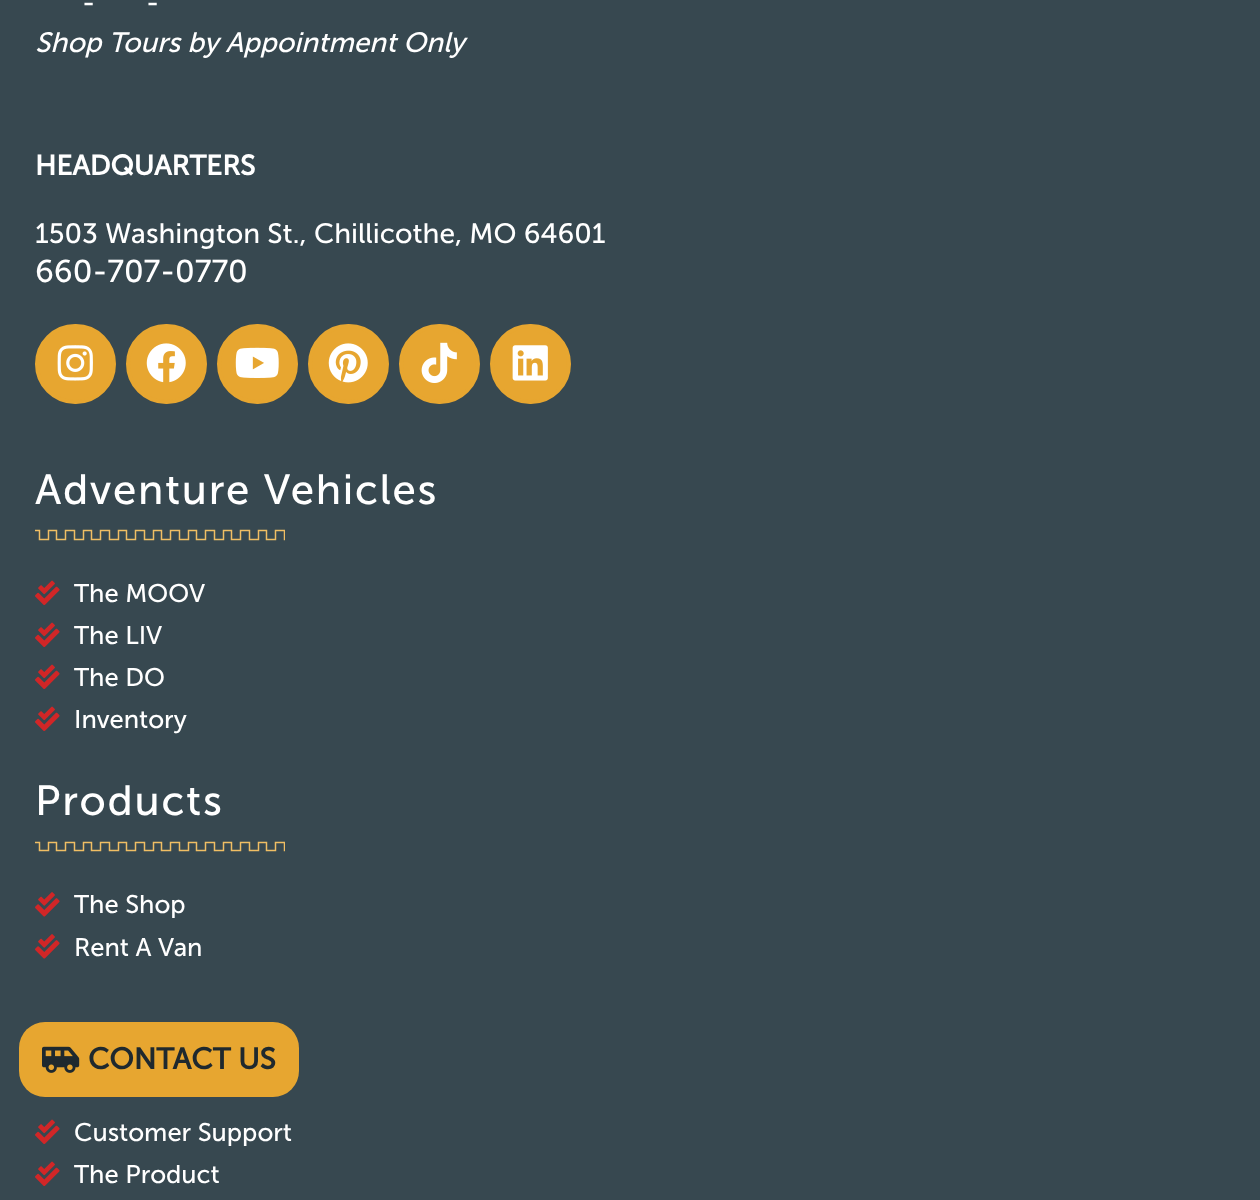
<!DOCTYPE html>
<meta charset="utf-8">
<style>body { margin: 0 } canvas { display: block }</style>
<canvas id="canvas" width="1260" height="1200"></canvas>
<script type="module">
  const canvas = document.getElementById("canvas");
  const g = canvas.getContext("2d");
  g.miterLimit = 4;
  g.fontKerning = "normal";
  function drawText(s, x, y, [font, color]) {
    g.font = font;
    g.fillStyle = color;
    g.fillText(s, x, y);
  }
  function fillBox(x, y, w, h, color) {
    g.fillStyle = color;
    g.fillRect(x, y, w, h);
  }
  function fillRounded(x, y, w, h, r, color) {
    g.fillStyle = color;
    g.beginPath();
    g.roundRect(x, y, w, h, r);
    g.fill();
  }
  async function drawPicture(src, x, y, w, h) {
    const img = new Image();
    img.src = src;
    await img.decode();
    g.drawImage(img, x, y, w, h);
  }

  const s1 = ["28px Museo Sans", "#FFFFFF"];
  const s2 = ["italic 28px Museo Sans", "#FFFFFF"];
  const s3 = ["bold 28px Museo Sans", "#FFFFFF"];
  const s4 = ["31.5px Museo Sans", "#FFFFFF"];
  const s5 = ["42px Museo Sans", "#FFFFFF"];
  const s6 = ["25.5px Museo Sans", "#FFFFFF"];
  const s7 = ["bold 29.75px Museo Sans", "#1F292E"];

  fillBox(0, 0, 1260, 1200, "#374850");
  drawText("-", 82, 12, s1);
  drawText("-", 146, 12, s1);
  drawText("Shop Tours by Appointment Only", 35, 52, s2);
  drawText("HEADQUARTERS", 35, 175, s3);
  drawText("1503 Washington St., Chillicothe, MO 64601", 35, 243, s1);
  drawText("660-707-0770", 35, 282, s4);
  g.fillStyle = "#E7A630";
  g.beginPath();
  g.roundRect(37, 326, 77, 76, 38);
  g.fill();
  g.strokeStyle = "#E7A630";
  g.lineWidth = 4;
  g.stroke();
  await drawPicture("pic1.png", 57, 345, 36, 36);
  g.beginPath();
  g.roundRect(128, 326, 77, 76, 38);
  g.fill();
  g.stroke();
  await drawPicture("pic2.png", 146, 343, 40, 40);
  g.beginPath();
  g.roundRect(219, 326, 77, 76, 38);
  g.fill();
  g.stroke();
  await drawPicture("pic3.png", 235, 347, 44, 31);
  g.beginPath();
  g.roundRect(310, 326, 77, 76, 38);
  g.fill();
  g.stroke();
  await drawPicture("pic4.png", 328, 343, 40, 40);
  g.beginPath();
  g.roundRect(401, 326, 77, 76, 38);
  g.fill();
  g.stroke();
  await drawPicture("pic5.png", 421, 342, 36, 41);
  g.beginPath();
  g.roundRect(492, 326, 77, 76, 38);
  g.fill();
  g.stroke();
  await drawPicture("pic6.png", 512, 345, 36, 36);
  g.letterSpacing = "1.75px";
  drawText("Adventure Vehicles", 35, 504, s5);
  await drawPicture("pic7.png", 35, 529, 250, 12);
  await drawPicture("pic8.png", 35, 580, 25, 25);
  g.letterSpacing = "0px";
  drawText("The MOOV", 74, 602, s6);
  await drawPicture("pic8.png", 35, 622, 25, 25);
  drawText("The LIV", 74, 644, s6);
  await drawPicture("pic8.png", 35, 664, 25, 25);
  drawText("The DO", 74, 686, s6);
  await drawPicture("pic8.png", 35, 706, 25, 25);
  drawText("Inventory", 74, 728, s6);
  g.letterSpacing = "1.75px";
  drawText("Products", 35, 815, s5);
  await drawPicture("pic9.png", 35, 841, 250, 11);
  await drawPicture("pic10.png", 35, 892, 25, 25);
  g.letterSpacing = "0px";
  drawText("The Shop", 74, 913, s6);
  await drawPicture("pic10.png", 35, 934, 25, 25);
  drawText("Rent A Van", 74, 956, s6);
  await drawPicture("pic8.png", 35, 1119, 25, 25);
  drawText("Customer Support", 74, 1141, s6);
  await drawPicture("pic8.png", 35, 1161, 25, 25);
  drawText("The Product", 74, 1183, s6);
  fillRounded(19, 1022, 280, 75, 26, "#E7A630");
  await drawPicture("pic11.png", 42, 1046, 38, 27);
  drawText("CONTACT US", 88, 1069, s7);
</script>
